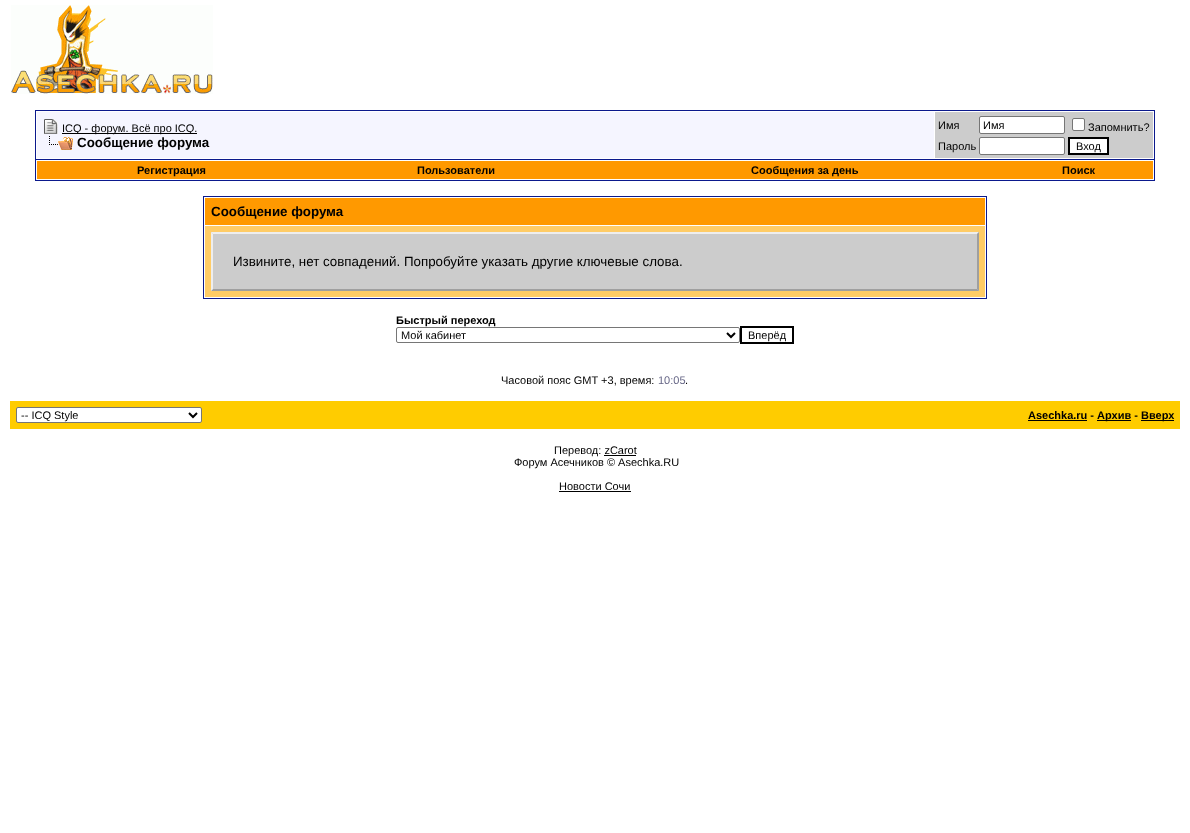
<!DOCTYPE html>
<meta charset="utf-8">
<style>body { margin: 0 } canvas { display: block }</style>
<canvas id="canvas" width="1190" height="833"></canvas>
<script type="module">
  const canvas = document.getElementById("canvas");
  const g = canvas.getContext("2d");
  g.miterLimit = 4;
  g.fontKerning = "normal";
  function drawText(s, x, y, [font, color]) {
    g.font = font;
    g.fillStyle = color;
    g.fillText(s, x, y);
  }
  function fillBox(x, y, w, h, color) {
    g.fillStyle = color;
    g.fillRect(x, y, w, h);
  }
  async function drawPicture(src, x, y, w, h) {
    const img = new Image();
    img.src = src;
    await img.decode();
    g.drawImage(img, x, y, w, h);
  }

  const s1 = ["11px Liberation Sans", "#000000"];
  const s2 = ["bold 13.35px Liberation Sans", "#000000"];
  const s3 = ["bold 11px Liberation Sans", "#000000"];
  const s4 = ["13.35px Liberation Sans", "#000000"];
  const s5 = ["11px Liberation Sans", "#666686"];

  fillBox(0, 0, 1190, 833, "#FFFFFF");
  await drawPicture("pic1.png", 11, 5, 202, 89);
  g.strokeStyle = "#0B198C";
  g.strokeRect(35.5, 110.5, 1119, 49);
  fillBox(37, 112, 897, 46, "#F5F5FF");
  await drawPicture("pic2.png", 44, 119, 14, 15);
  fillBox(62, 133, 135, 1, "#000000");
  drawText("ICQ - форум. Всё про ICQ.", 62, 132, s1);
  await drawPicture("pic3.png", 49, 136, 24, 14);
  drawText("Сообщение форума", 77, 147, s2);
  fillBox(935, 112, 218, 46, "#CCCCCC");
  drawText("Имя", 938, 129, s1);
  g.fillStyle = "#FFFFFF";
  g.beginPath();
  g.roundRect(979.5, 116.5, 85, 17, 1.5);
  g.fill();
  g.strokeStyle = "#767676";
  g.stroke();
  drawText("Имя", 983, 129, s1);
  g.fillStyle = "#FFFFFF";
  g.beginPath();
  g.roundRect(1072.5, 118.5, 12, 12, 1.5);
  g.fill();
  g.stroke();
  drawText("Запомнить?", 1088, 131, s1);
  drawText("Пароль", 938, 150, s1);
  g.fillStyle = "#FFFFFF";
  g.beginPath();
  g.roundRect(979.5, 137.5, 85, 17, 1.5);
  g.fill();
  g.stroke();
  g.beginPath();
  g.rect(1069, 138, 39, 16);
  g.fill();
  g.strokeStyle = "#000000";
  g.lineWidth = 2;
  g.stroke();
  drawText("Вход", 1076, 150, s1);
  fillBox(1154, 160, 1, 21, "#0B198C");
  fillBox(35, 180, 1120, 1, "#0B198C");
  fillBox(35, 160, 1, 21, "#0B198C");
  fillBox(37, 161, 1116, 18, "#FF9900");
  drawText("Регистрация", 137, 174, s3);
  drawText("Пользователи", 417, 174, s3);
  drawText("Сообщения за день", 751, 174, s3);
  drawText("Поиск", 1062, 174, s3);
  g.strokeStyle = "#0B198C";
  g.lineWidth = 1;
  g.strokeRect(203.5, 196.5, 783, 102);
  fillBox(205, 198, 780, 27, "#FF9900");
  drawText("Сообщение форума", 211, 216, s2);
  fillBox(205, 226, 780, 71, "#FFCC66");
  fillBox(211, 232, 768, 59, "#CCCCCC");
  g.fillStyle = "#EEEEEE";
  g.beginPath();
  g.moveTo(211, 232);
  g.lineTo(979, 232);
  g.lineTo(977, 234);
  g.lineTo(213, 234);
  g.closePath();
  g.fill();
  g.fillStyle = "#9F9F9F";
  g.beginPath();
  g.moveTo(979, 232);
  g.lineTo(979, 291);
  g.lineTo(977, 289);
  g.lineTo(977, 234);
  g.closePath();
  g.fill();
  g.beginPath();
  g.moveTo(979, 291);
  g.lineTo(211, 291);
  g.lineTo(213, 289);
  g.lineTo(977, 289);
  g.closePath();
  g.fill();
  g.fillStyle = "#EEEEEE";
  g.beginPath();
  g.moveTo(211, 291);
  g.lineTo(211, 232);
  g.lineTo(213, 234);
  g.lineTo(213, 289);
  g.closePath();
  g.fill();
  drawText("Извините, нет совпадений. Попробуйте указать другие ключевые слова.", 233, 266, s4);
  drawText("Быстрый переход", 396, 324, s3);
  g.beginPath();
  g.roundRect(396.5, 327.5, 343, 15, 1.5);
  g.strokeStyle = "#767676";
  g.stroke();
  g.beginPath();
  g.moveTo(727, 333);
  g.lineTo(731, 337);
  g.lineTo(735, 333);
  g.strokeStyle = "#000000";
  g.lineWidth = 2;
  g.stroke();
  drawText("Мой кабинет", 401, 339, s1);
  g.strokeRect(741, 327, 52, 16);
  drawText("Вперёд", 748, 339, s1);
  drawText("Часовой пояс GMT +3, время:", 501, 384, s1);
  drawText("10:05", 658, 384, s5);
  drawText(".", 685, 384, s1);
  fillBox(10, 401, 1170, 28, "#FFCC00");
  g.fillStyle = "#FFFFFF";
  g.beginPath();
  g.roundRect(16.5, 407.5, 185, 15, 1.5);
  g.fill();
  g.strokeStyle = "#767676";
  g.lineWidth = 1;
  g.stroke();
  g.beginPath();
  g.moveTo(189, 413);
  g.lineTo(193, 417);
  g.lineTo(197, 413);
  g.strokeStyle = "#000000";
  g.lineWidth = 2;
  g.stroke();
  drawText("-- ICQ Style", 21, 419, s1);
  drawText("Asechka.ru -", 1028, 419, s3);
  fillBox(1028, 420, 59, 1, "#000000");
  fillBox(1097, 420, 34, 1, "#000000");
  drawText("Архив -", 1097, 419, s3);
  fillBox(1141, 420, 33, 1, "#000000");
  drawText("Вверх", 1141, 419, s3);
  drawText("Перевод: zCarot", 554, 454, s1);
  fillBox(604, 455, 32, 1, "#000000");
  drawText("Форум Асечников © Asechka.RU", 514, 466, s1);
  drawText("Новости Сочи", 559, 490, s1);
  fillBox(559, 491, 72, 1, "#000000");
</script>
